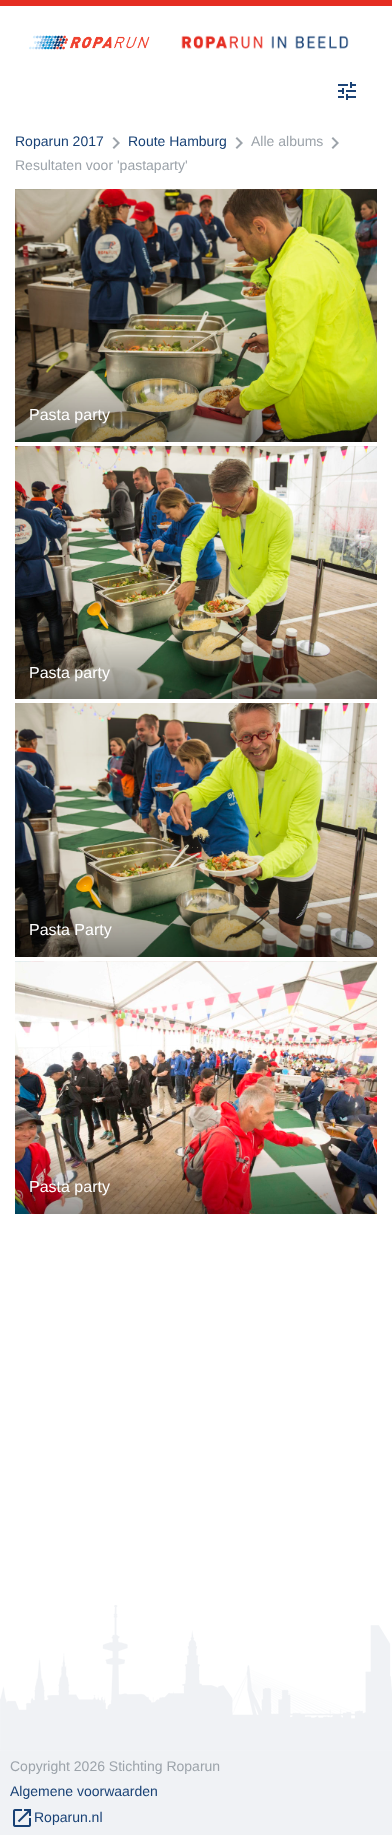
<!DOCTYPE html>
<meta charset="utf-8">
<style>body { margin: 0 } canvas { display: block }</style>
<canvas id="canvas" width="392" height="1835"></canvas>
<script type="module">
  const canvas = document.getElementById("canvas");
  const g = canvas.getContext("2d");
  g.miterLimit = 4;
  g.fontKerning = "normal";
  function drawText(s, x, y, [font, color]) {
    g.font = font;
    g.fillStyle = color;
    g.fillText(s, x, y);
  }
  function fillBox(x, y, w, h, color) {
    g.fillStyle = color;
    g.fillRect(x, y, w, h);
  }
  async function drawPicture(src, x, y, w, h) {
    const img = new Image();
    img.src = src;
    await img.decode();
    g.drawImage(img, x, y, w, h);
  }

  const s1 = ["14px Liberation Sans", "#184175"];
  const s2 = ["14px Liberation Sans", "#9CA3AA"];
  const s3 = ["16px Liberation Sans", "#FFFFFF"];

  fillBox(0, 0, 392, 1835, "#FFFFFF");
  fillBox(0, 0, 392, 6, "#E52D22");
  await drawPicture("pic1.png", 29, 35, 121, 15);
  await drawPicture("pic2.png", 181, 35, 168, 14);
  await drawPicture("pic3.png", 338, 82, 18, 18);
  drawText("Roparun 2017", 15, 146, s1);
  await drawPicture("pic4.png", 112, 137, 8, 12);
  drawText("Route Hamburg", 128, 146, s1);
  await drawPicture("pic4.png", 235, 137, 8, 12);
  drawText("Alle albums", 251, 146, s2);
  await drawPicture("pic4.png", 331, 137, 8, 12);
  drawText("Resultaten voor 'pastaparty'", 15, 170, s2);
  await drawPicture("pic5.png", 15, 189, 362, 253);
  drawText("Pasta party", 29, 420, s3);
  await drawPicture("pic6.png", 15, 446, 362, 253);
  drawText("Pasta party", 29, 678, s3);
  await drawPicture("pic7.png", 15, 703, 362, 254);
  drawText("Pasta Party", 29, 935, s3);
  await drawPicture("pic8.png", 15, 961, 362, 253);
  drawText("Pasta party", 29, 1192, s3);
  await drawPicture("pic9.png", 0, 1605, 392, 146);
  fillBox(0, 1751, 392, 84, "#F0F2F5");
  drawText("Copyright 2026 Stichting Roparun", 10, 1771, s2);
  drawText("Algemene voorwaarden", 10, 1796, s1);
  await drawPicture("pic10.png", 13, 1809, 18, 18);
  drawText("Roparun.nl", 34, 1822, s1);
</script>
